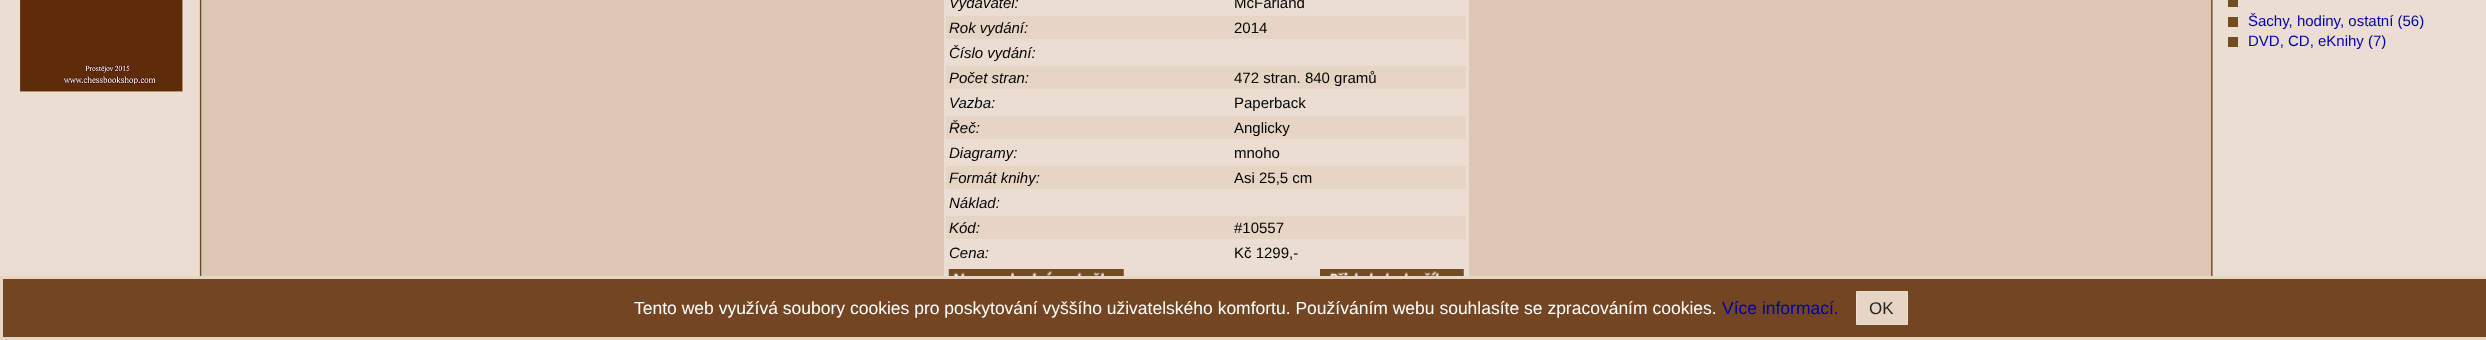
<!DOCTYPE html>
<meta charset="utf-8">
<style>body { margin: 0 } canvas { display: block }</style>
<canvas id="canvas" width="2486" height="340"></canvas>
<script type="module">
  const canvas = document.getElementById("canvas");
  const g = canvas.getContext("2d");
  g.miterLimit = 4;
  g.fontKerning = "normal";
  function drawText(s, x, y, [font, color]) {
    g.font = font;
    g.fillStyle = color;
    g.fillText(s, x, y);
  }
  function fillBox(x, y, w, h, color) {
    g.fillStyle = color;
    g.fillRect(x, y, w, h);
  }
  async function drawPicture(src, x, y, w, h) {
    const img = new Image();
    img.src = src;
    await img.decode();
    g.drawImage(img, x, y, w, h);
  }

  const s1 = ["italic 15px Liberation Sans", "#000000"];
  const s2 = ["15px Liberation Sans", "#000000"];
  const s3 = ["15px Liberation Sans", "#0000AA"];
  const s4 = ["17.5px Liberation Sans", "#FFFFFF"];
  const s5 = ["17.5px Liberation Sans", "#0000AA"];
  const s6 = ["17px Liberation Sans", "#222222"];

  fillBox(0, 0, 2486, 340, "#DDC7B2");
  await drawPicture("pic1.png", 0, 0, 202, 276);
  await drawPicture("pic2.png", 20, 0, 163, 92);
  fillBox(944, 0, 525, 276, "#EBDDD1");
  drawText("Vydavatel:", 949, 8, s1);
  drawText("McFarland", 1234, 8, s2);
  fillBox(946, 16, 520, 23, "#E6D5C5");
  drawText("Rok vydání:", 949, 33, s1);
  drawText("2014", 1234, 33, s2);
  drawText("Číslo vydání:", 949, 58, s1);
  fillBox(946, 66, 520, 23, "#E6D5C5");
  drawText("Počet stran:", 949, 83, s1);
  drawText("472 stran. 840 gramů", 1234, 83, s2);
  drawText("Vazba:", 949, 108, s1);
  drawText("Paperback", 1234, 108, s2);
  fillBox(946, 116, 520, 23, "#E6D5C5");
  drawText("Řeč:", 949, 133, s1);
  drawText("Anglicky", 1234, 133, s2);
  drawText("Diagramy:", 949, 158, s1);
  drawText("mnoho", 1234, 158, s2);
  fillBox(946, 166, 520, 23, "#E6D5C5");
  drawText("Formát knihy:", 949, 183, s1);
  drawText("Asi 25,5 cm", 1234, 183, s2);
  drawText("Náklad:", 949, 208, s1);
  fillBox(946, 216, 520, 23, "#E6D5C5");
  drawText("Kód:", 949, 233, s1);
  drawText("#10557", 1234, 233, s2);
  drawText("Cena:", 949, 258, s1);
  drawText("Kč 1299,-", 1234, 258, s2);
  await drawPicture("pic3.png", 948, 269, 176, 7);
  await drawPicture("pic4.png", 1320, 269, 144, 7);
  await drawPicture("pic5.png", 2211, 0, 275, 276);
  fillBox(2228, 0, 10, 7, "#734D22");
  fillBox(2228, 17, 10, 10, "#734D22");
  drawText("Šachy, hodiny, ostatní (56)", 2248, 26, s3);
  fillBox(2228, 37, 10, 10, "#734D22");
  drawText("DVD, CD, eKnihy (7)", 2248, 46, s3);
  g.fillStyle = "#734522";
  g.beginPath();
  g.rect(1.5, 277.5, 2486, 61);
  g.fill();
  g.strokeStyle = "#E6D5C5";
  g.lineWidth = 3;
  g.stroke();
  drawText("Tento web využívá soubory cookies pro poskytování vyššího uživatelského komfortu. Používáním webu souhlasíte se zpracováním cookies.", 634, 314, s4);
  drawText("Více informací.", 1722, 314, s5);
  g.fillStyle = "#E6D5C5";
  g.beginPath();
  g.rect(1856.5, 291.5, 51, 33);
  g.fill();
  g.strokeStyle = "#EBDDD1";
  g.lineWidth = 1;
  g.stroke();
  drawText("OK", 1869, 314, s6);
</script>
